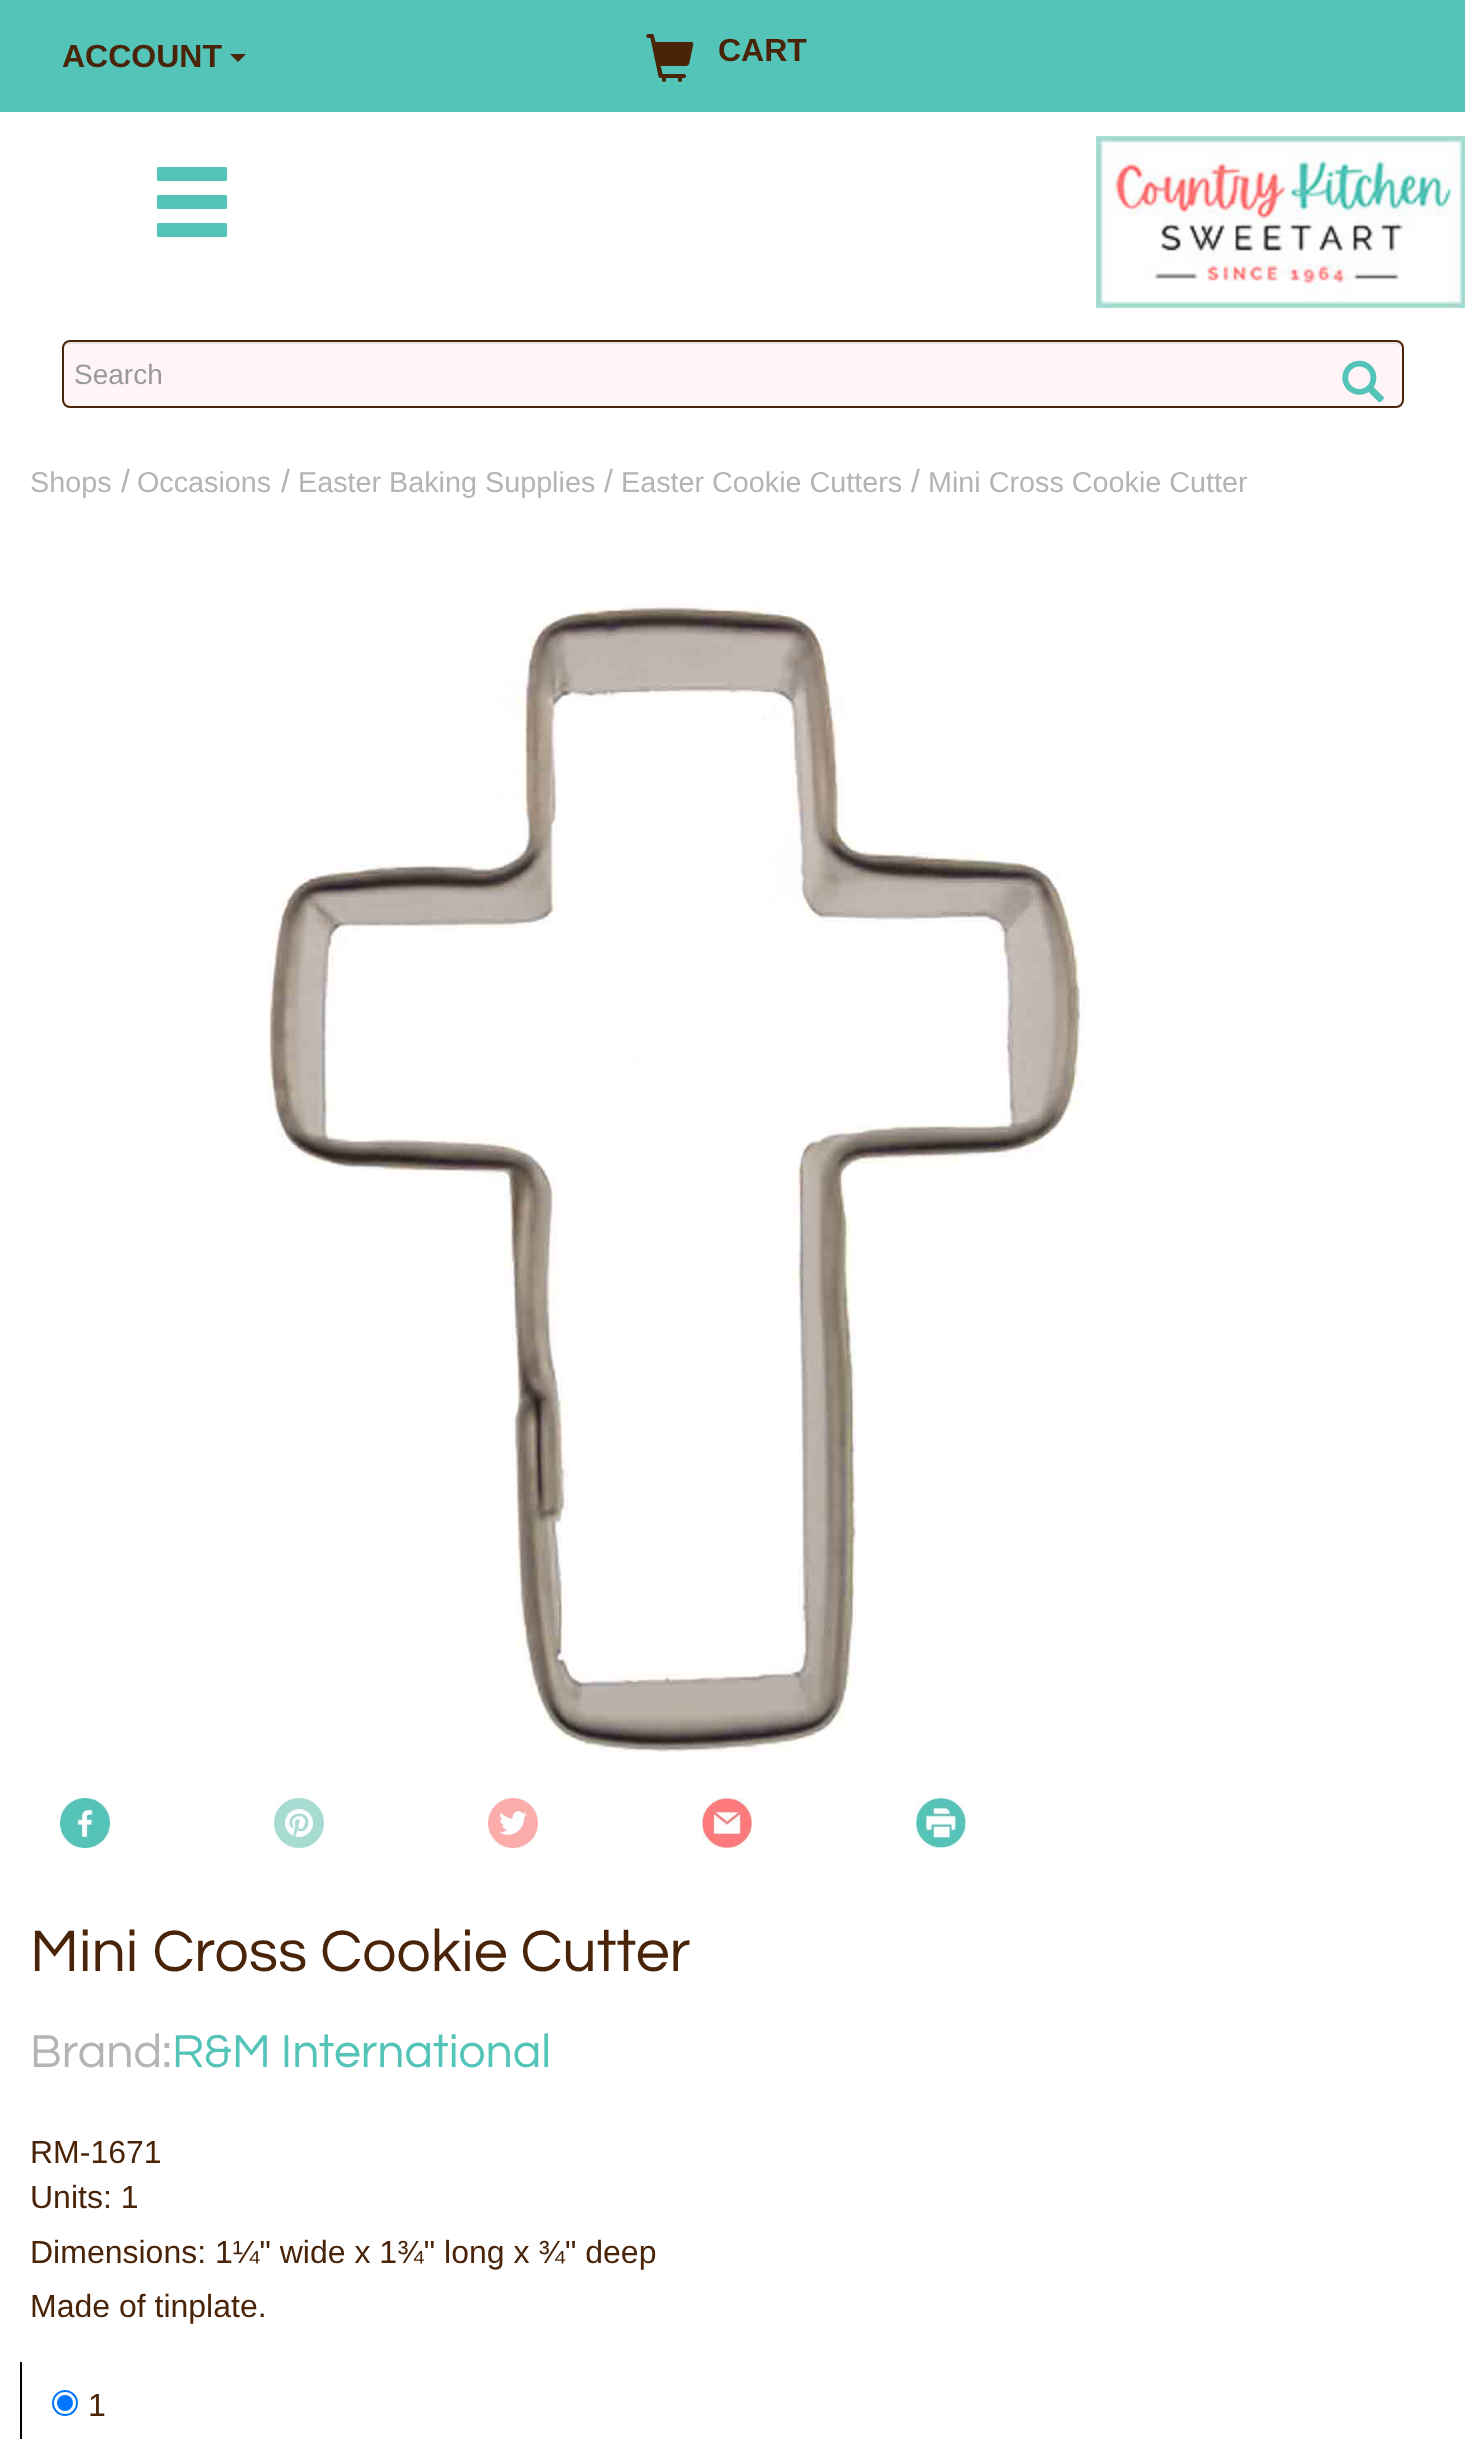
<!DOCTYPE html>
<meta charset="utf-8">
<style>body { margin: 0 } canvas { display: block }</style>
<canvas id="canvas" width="1465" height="2439"></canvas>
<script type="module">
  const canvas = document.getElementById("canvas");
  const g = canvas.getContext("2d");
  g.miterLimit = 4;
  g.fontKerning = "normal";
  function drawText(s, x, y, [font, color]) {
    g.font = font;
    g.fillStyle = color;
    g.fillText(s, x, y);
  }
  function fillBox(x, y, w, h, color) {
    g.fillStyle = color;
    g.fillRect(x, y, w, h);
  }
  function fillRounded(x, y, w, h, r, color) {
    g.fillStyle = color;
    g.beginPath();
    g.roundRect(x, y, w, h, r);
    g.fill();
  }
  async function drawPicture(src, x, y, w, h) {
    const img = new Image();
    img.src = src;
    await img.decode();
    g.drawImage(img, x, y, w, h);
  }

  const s1 = ["bold 32px Liberation Sans", "#492408"];
  const s2 = ["28px Liberation Sans", "#999999"];
  const s3 = ["28.75px Liberation Sans", "#B4B4B4"];
  const s4 = ["32px Liberation Sans", "#B4B4B4"];
  const s5 = ["60.75px Questrial", "#492408"];
  const s6 = ["48px Questrial", "#B4B4B4"];
  const s7 = ["48px Questrial", "#54C4B8"];
  const s8 = ["32px Liberation Sans", "#492408"];

  fillBox(0, 0, 1465, 2439, "#FFFFFF");
  fillBox(0, 0, 1465, 112, "#54C4B8");
  drawText("ACCOUNT", 62, 67, s1);
  g.beginPath();
  g.moveTo(230, 54);
  g.lineTo(246, 54);
  g.lineTo(238, 62);
  g.closePath();
  g.fill();
  await drawPicture("pic1.png", 646, 34, 48, 48);
  drawText("CART", 718, 61, s1);
  await drawPicture("pic2.png", 157, 167, 70, 70);
  await drawPicture("pic3.png", 1096, 136, 369, 172);
  fillRounded(62, 340, 1342, 68, 8, "#FFF5F7");
  g.fillStyle = "#ECE3E4";
  g.beginPath();
  g.moveTo(70, 344);
  g.lineTo(1396, 344);
  g.bezierCurveTo(1399, 344, 1402, 347, 1402, 350);
  g.lineTo(1402, 348);
  g.bezierCurveTo(1402, 345, 1399, 342, 1396, 342);
  g.lineTo(70, 342);
  g.bezierCurveTo(67, 342, 64, 345, 64, 348);
  g.lineTo(64, 350);
  g.bezierCurveTo(64, 347, 67, 344, 70, 344);
  g.closePath();
  g.fill();
  g.beginPath();
  g.roundRect(63, 341, 1340, 66, 7);
  g.strokeStyle = "#492408";
  g.lineWidth = 2;
  g.stroke();
  drawText("Search", 74, 384, s2);
  await drawPicture("pic4.png", 1342, 360, 42, 43);
  drawText("Shops", 30, 492, s3);
  drawText("/", 121, 492, s4);
  drawText("Occasions", 137, 492, s3);
  drawText("/", 281, 492, s4);
  drawText("Easter Baking Supplies", 298, 492, s3);
  drawText("/", 604, 492, s4);
  drawText("Easter Cookie Cutters", 621, 492, s3);
  drawText("/", 911, 492, s4);
  drawText("Mini Cross Cookie Cutter", 928, 492, s3);
  await drawPicture("pic5.png", 269, 603, 815, 1149);
  await drawPicture("pic6.png", 60, 1798, 50, 50);
  await drawPicture("pic7.png", 274, 1798, 50, 50);
  await drawPicture("pic8.png", 488, 1798, 50, 50);
  await drawPicture("pic9.png", 702, 1798, 50, 50);
  await drawPicture("pic10.png", 916, 1798, 50, 50);
  drawText("Mini Cross Cookie Cutter", 30, 1971, s5);
  drawText("Brand:", 30, 2067, s6);
  drawText("R&M International", 172, 2067, s7);
  drawText("RM-1671", 30, 2163, s8);
  drawText("Units: 1", 30, 2208, s8);
  drawText("Dimensions: 1¼\" wide x 1¾\" long x ¾\" deep", 30, 2263, s8);
  drawText("Made of tinplate.", 30, 2317, s8);
  fillBox(20, 2362, 2, 77, "#000000");
  g.beginPath();
  g.arc(65, 2403, 12, 0, Math.PI * 2);
  g.strokeStyle = "#0075FF";
  g.stroke();
  g.fillStyle = "#0075FF";
  g.beginPath();
  g.arc(65, 2403, 8, 0, Math.PI * 2);
  g.fill();
  drawText("1", 88, 2416, s8);
</script>
